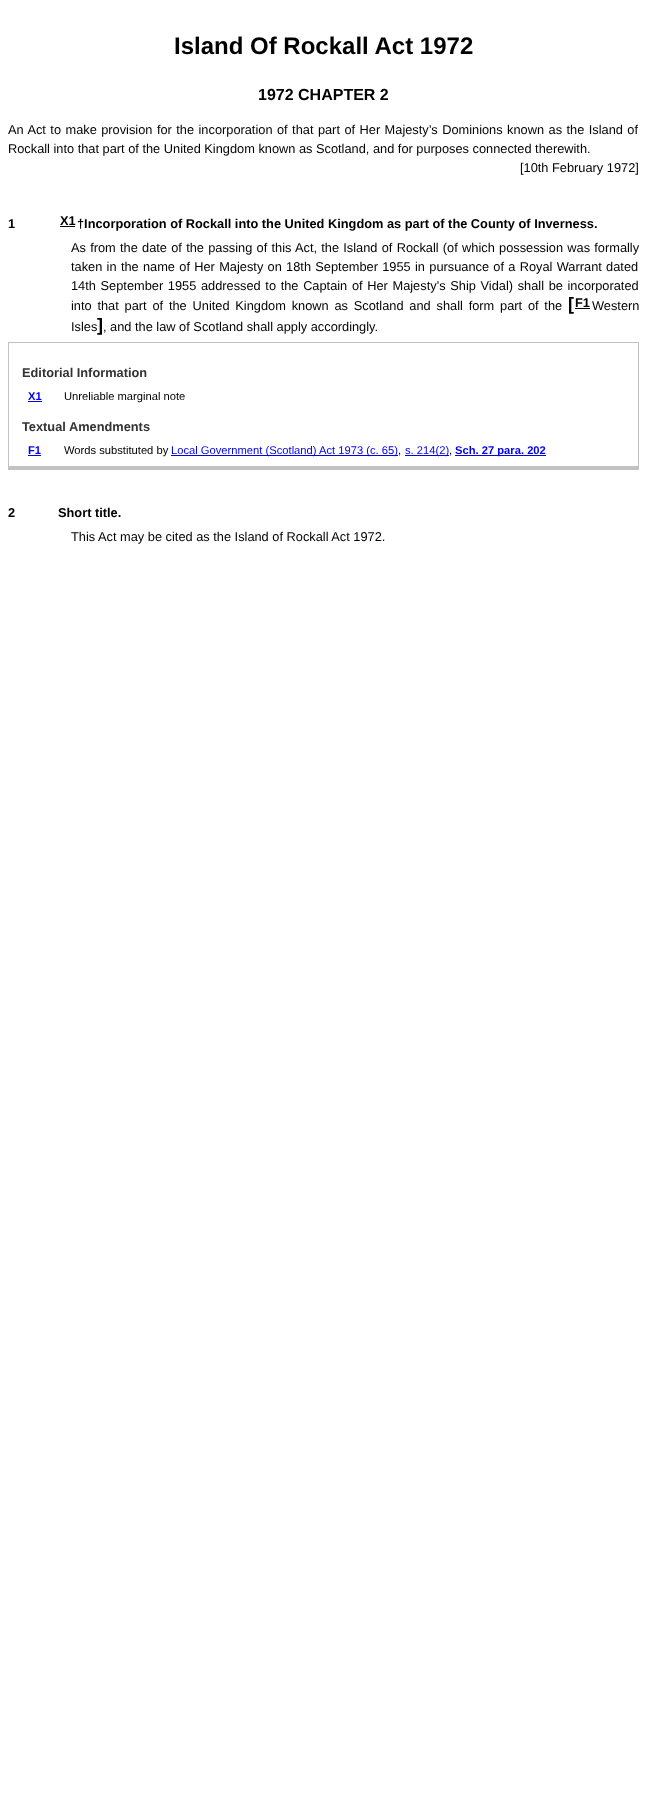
<!DOCTYPE html>
<meta charset="utf-8">
<style>body { margin: 0 } canvas { display: block }</style>
<canvas id="canvas" width="647" height="1798"></canvas>
<script type="module">
  const canvas = document.getElementById("canvas");
  const g = canvas.getContext("2d");
  g.miterLimit = 4;
  g.fontKerning = "normal";
  function drawText(s, x, y, [font, color]) {
    g.font = font;
    g.fillStyle = color;
    g.fillText(s, x, y);
  }
  function fillBox(x, y, w, h, color) {
    g.fillStyle = color;
    g.fillRect(x, y, w, h);
  }

  const s1 = ["bold 24px Liberation Sans", "#000000"];
  const s2 = ["bold 16px Liberation Sans", "#000000"];
  const s3 = ["12.8px Liberation Sans", "#000000"];
  const s4 = ["bold 12.8px Liberation Sans", "#000000"];
  const s5 = ["bold 18px Liberation Sans", "#000000"];
  const s6 = ["bold 12.8px Liberation Sans", "#333333"];
  const s7 = ["bold 11.2px Liberation Sans", "#0000EE"];
  const s8 = ["11.2px Liberation Sans", "#000000"];
  const s9 = ["11.2px Liberation Sans", "#0000EE"];

  fillBox(0, 0, 647, 1798, "#FFFFFF");
  drawText("Island Of Rockall Act 1972", 174, 54, s1);
  drawText("1972 CHAPTER 2", 258, 100, s2);
  g.wordSpacing = "0.9px";
  drawText("An Act to make provision for the incorporation of that part of Her Majesty’s Dominions known as the Island of", 8, 134, s3);
  g.wordSpacing = "0px";
  drawText("Rockall into that part of the United Kingdom known as Scotland, and for purposes connected therewith.", 8, 153, s3);
  drawText("[10th February 1972]", 520, 172, s3);
  drawText("1", 8, 228, s4);
  drawText("X1", 60, 225, s4);
  fillBox(60, 226, 15, 1, "#000000");
  drawText("†Incorporation of Rockall into the United Kingdom as part of the County of Inverness.", 77, 228, s4);
  g.wordSpacing = "0.7px";
  drawText("As from the date of the passing of this Act, the Island of Rockall (of which possession was formally", 71, 252, s3);
  g.wordSpacing = "0.75px";
  drawText("taken in the name of Her Majesty on 18th September 1955 in pursuance of a Royal Warrant dated", 71, 271, s3);
  g.wordSpacing = "1.1px";
  drawText("14th September 1955 addressed to the Captain of Her Majesty’s Ship Vidal) shall be incorporated", 71, 290, s3);
  g.wordSpacing = "2.25px";
  drawText("into that part of the United Kingdom known as Scotland and shall form part of the", 71, 310, s3);
  g.wordSpacing = "0px";
  drawText("[", 568, 310, s5);
  drawText("F1", 575, 307, s4);
  fillBox(575, 308, 15, 1, "#000000");
  drawText("Western", 592, 310, s3);
  drawText("Isles", 71, 331, s3);
  drawText("]", 97, 331, s5);
  drawText(", and the law of Scotland shall apply accordingly.", 103, 331, s3);
  fillBox(8, 342, 631, 1, "#C2C2C2");
  fillBox(638, 342, 1, 128, "#C2C2C2");
  fillBox(8, 466, 631, 4, "#C2C2C2");
  fillBox(8, 342, 1, 128, "#C2C2C2");
  drawText("Editorial Information", 22, 377, s6);
  drawText("X1", 28, 400, s7);
  fillBox(28, 401, 14, 1, "#0000EE");
  drawText("Unreliable marginal note", 64, 400, s8);
  drawText("Textual Amendments", 22, 431, s6);
  drawText("F1", 28, 454, s7);
  fillBox(28, 455, 13, 1, "#0000EE");
  drawText("Words substituted by", 64, 454, s8);
  fillBox(171, 455, 227, 1, "#0000EE");
  drawText("Local Government (Scotland) Act 1973 (c. 65)", 171, 454, s9);
  drawText(",", 398, 454, s8);
  fillBox(405, 455, 44, 1, "#0000EE");
  drawText("s. 214(2)", 405, 454, s9);
  drawText(",", 449, 454, s8);
  fillBox(455, 455, 91, 1, "#0000EE");
  drawText("Sch. 27 para. 202", 455, 454, s7);
  drawText("2", 8, 517, s4);
  drawText("Short title.", 58, 517, s4);
  drawText("This Act may be cited as the Island of Rockall Act 1972.", 71, 541, s3);
</script>
